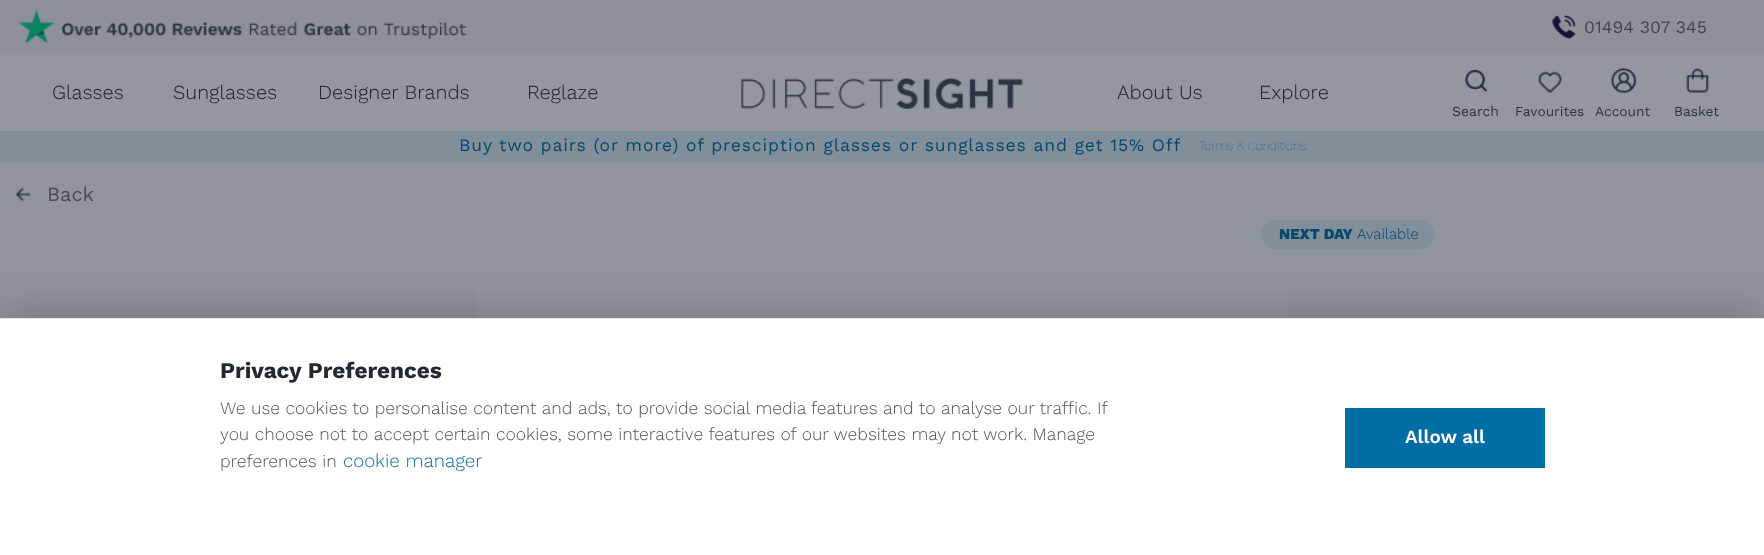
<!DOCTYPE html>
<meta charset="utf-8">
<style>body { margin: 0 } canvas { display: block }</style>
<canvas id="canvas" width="1764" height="555"></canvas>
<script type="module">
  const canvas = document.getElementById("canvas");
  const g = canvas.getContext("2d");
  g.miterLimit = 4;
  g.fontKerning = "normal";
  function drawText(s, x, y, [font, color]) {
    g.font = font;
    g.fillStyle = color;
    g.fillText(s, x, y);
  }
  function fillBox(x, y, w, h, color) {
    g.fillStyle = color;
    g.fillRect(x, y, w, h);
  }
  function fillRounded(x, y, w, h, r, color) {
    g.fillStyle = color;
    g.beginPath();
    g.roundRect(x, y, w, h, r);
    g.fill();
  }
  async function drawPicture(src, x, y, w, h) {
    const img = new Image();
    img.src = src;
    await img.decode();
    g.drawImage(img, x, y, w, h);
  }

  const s1 = ["17.5px Work Sans", "#3F4755"];
  const s2 = ["300 20px Work Sans", "#191D26"];
  const s3 = ["14px Work Sans", "#2B3442"];
  const s4 = ["13.75px Work Sans", "#2B3442"];
  const s5 = ["17.5px Work Sans", "#07476D"];
  const s6 = ["100 12.5px Work Sans", "#07476D"];
  const s7 = ["20px Work Sans", "#454C58"];
  const s8 = ["800 15px Work Sans", "#07476D"];
  const s9 = ["300 15px Work Sans", "#07476D"];
  const s10 = ["bold 22.5px Work Sans", "#1F2933"];
  const s11 = ["300 17.5px Work Sans", "#4B5563"];
  const s12 = ["300 18.75px Work Sans", "#006EA4"];
  const s13 = ["600 18.75px Work Sans", "#FFFFFF"];

  fillBox(0, 0, 1764, 555, "#93979F");
  fillBox(0, 0, 1764, 55, "#8E9198");
  await drawPicture("pic1.png", 18, 10, 449, 34);
  await drawPicture("pic2.png", 1552, 14, 24, 26);
  drawText("01494 307 345", 1584, 33, s1);
  drawText("Glasses", 52, 99, s2);
  drawText("Sunglasses", 173, 99, s2);
  drawText("Designer Brands", 318, 99, s2);
  drawText("Reglaze", 527, 99, s2);
  await drawPicture("pic3.png", 741, 77, 282, 32);
  drawText("About Us", 1117, 99, s2);
  drawText("Explore", 1259, 99, s2);
  await drawPicture("pic4.png", 1464, 69, 24, 23);
  drawText("Search", 1452, 116, s3);
  await drawPicture("pic5.png", 1537, 71, 26, 23);
  drawText("Favourites", 1515, 116, s4);
  await drawPicture("pic6.png", 1611, 67, 26, 27);
  drawText("Account", 1595, 116, s4);
  await drawPicture("pic7.png", 1686, 68, 23, 25);
  drawText("Basket", 1674, 116, s4);
  fillBox(0, 131, 1764, 32, "#818F9B");
  g.letterSpacing = "0.88px";
  drawText("Buy two pairs (or more) of presciption glasses or sunglasses and get 15% Off", 459, 151, s5);
  g.letterSpacing = "0px";
  drawText("Terms & Conditions", 1199, 150, s6);
  fillBox(0, 163, 1764, 155, "#90949C");
  await drawPicture("pic8.png", 15, 187, 17, 15);
  drawText("Back", 47, 201, s7);
  fillRounded(1261, 220, 173, 29, 14.5, "#818F9B");
  drawText("NEXT DAY", 1279, 239, s8);
  drawText("Available", 1357, 239, s9);
  await drawPicture("pic9.png", 477, 284, 811, 34);
  g.fillStyle = "rgba(15, 23, 42, 0.18)";
  g.filter = "blur(19px)";
  g.beginPath();
  g.rect(0, 305, 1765, 238);
  g.fill();
  g.filter = "none";
  fillBox(0, 319, 1764, 236, "#FFFFFF");
  fillBox(0, 318, 1764, 1, "#E3E6E9");
  drawText("Privacy Preferences", 220, 378, s10);
  drawText("We use cookies to personalise content and ads, to provide social media features and to analyse our traffic. If", 220, 414, s11);
  drawText("you choose not to accept certain cookies, some interactive features of our websites may not work. Manage", 220, 440, s11);
  drawText("preferences in", 220, 467, s11);
  drawText("cookie manager", 343, 467, s12);
  fillBox(1345, 408, 200, 60, "#006EA4");
  drawText("Allow all", 1405, 443, s13);
</script>
